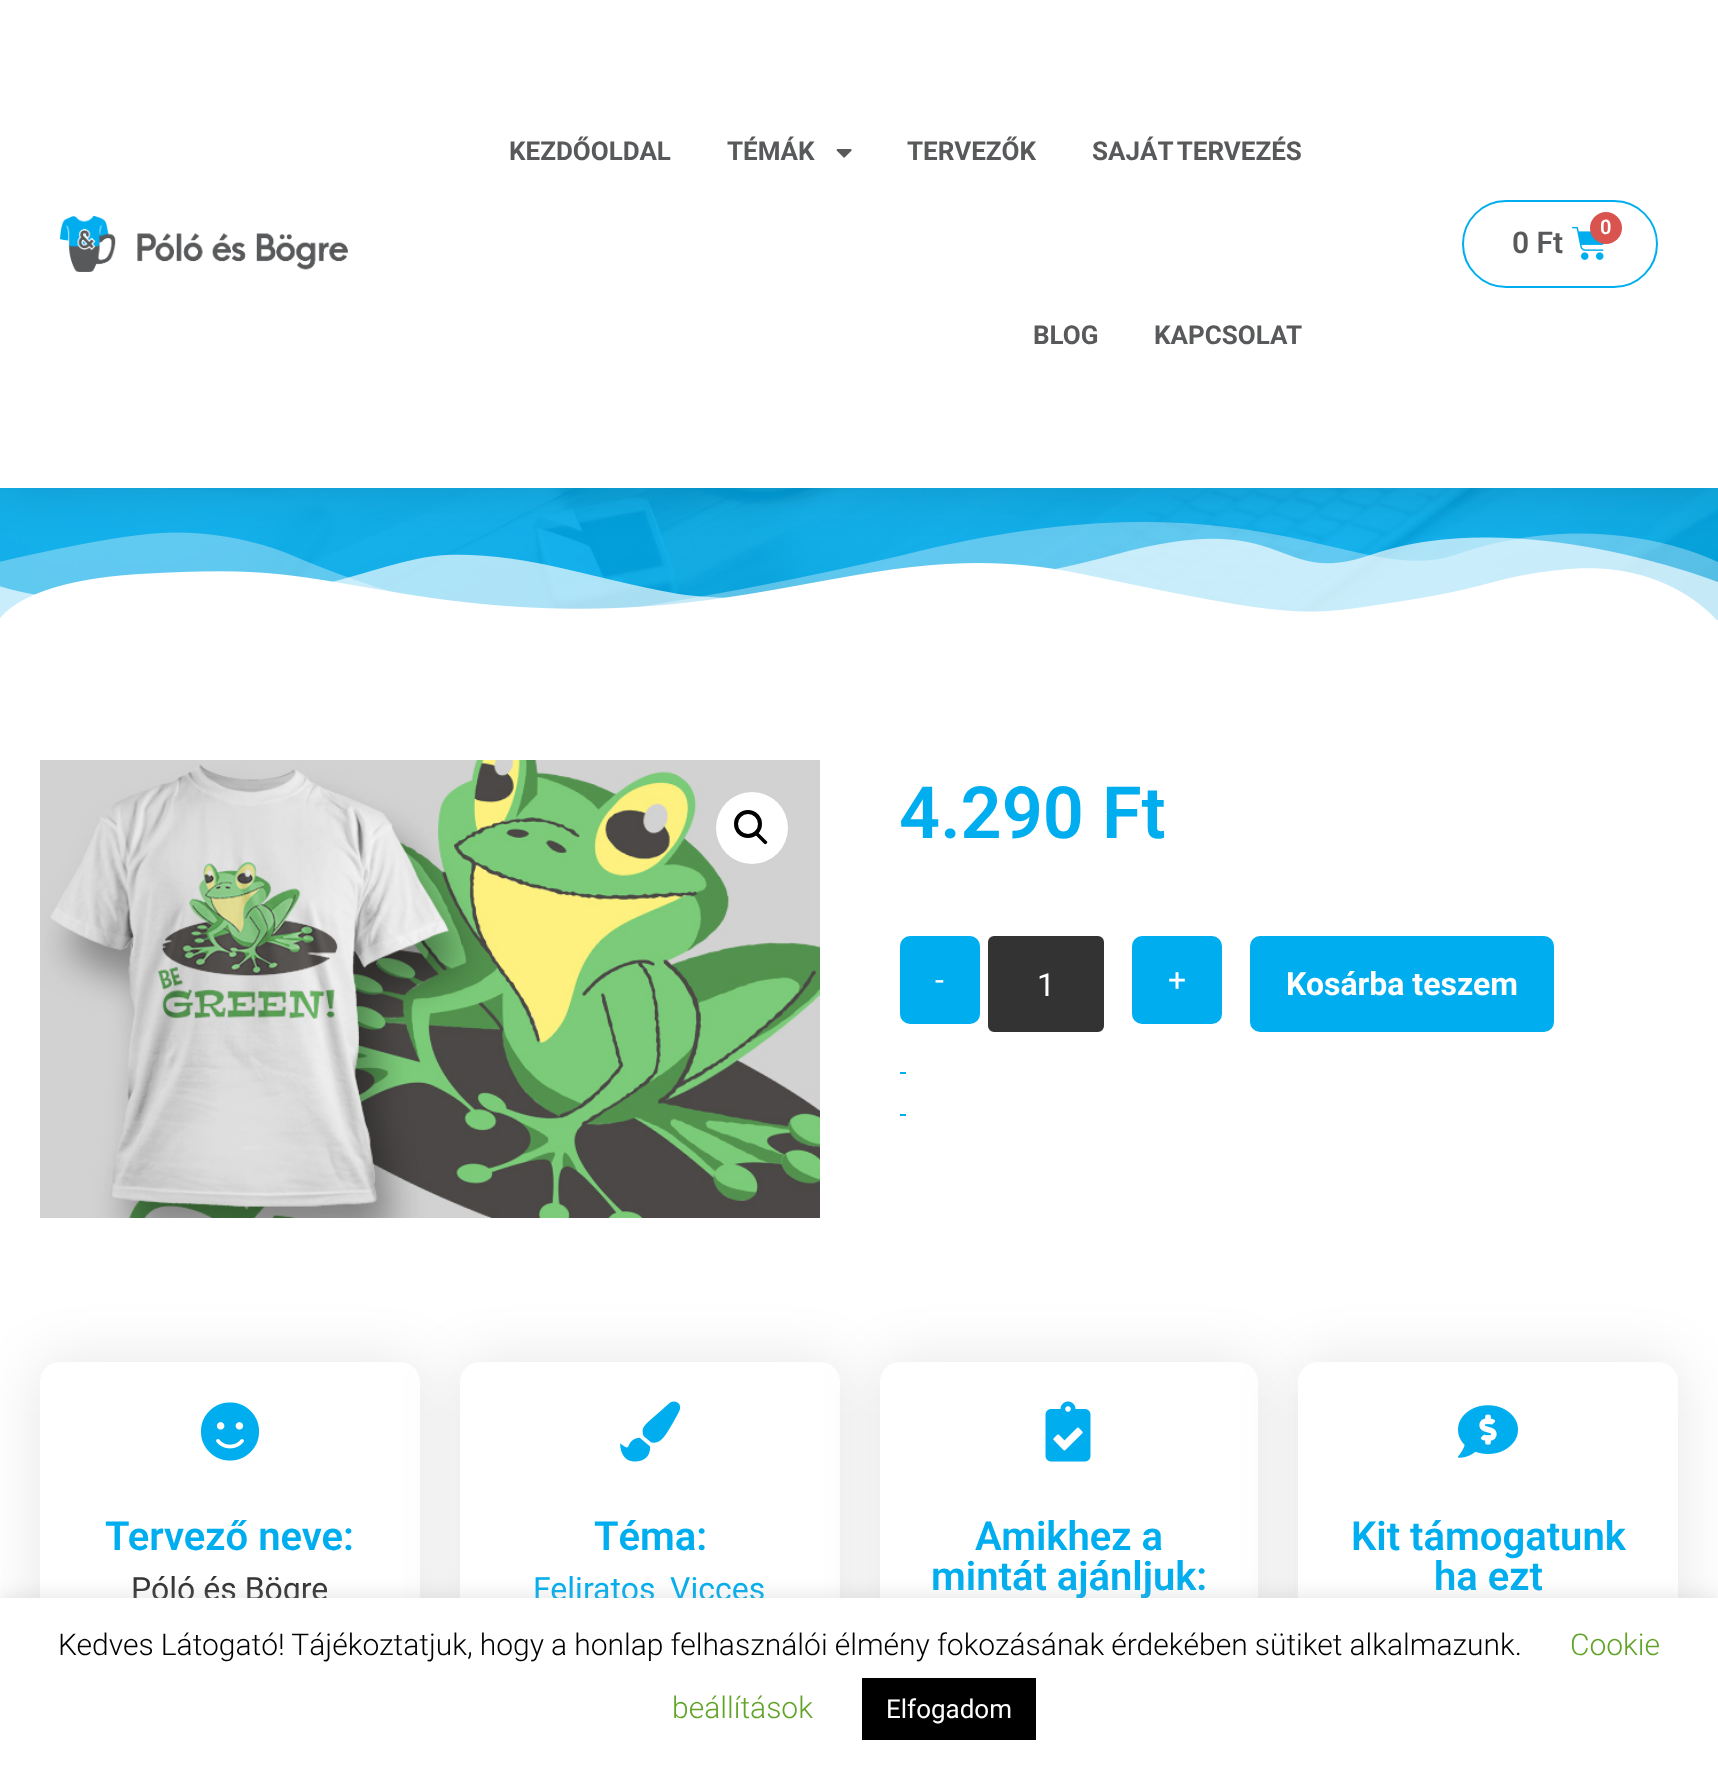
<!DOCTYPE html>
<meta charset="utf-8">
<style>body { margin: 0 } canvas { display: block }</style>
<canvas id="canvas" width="1718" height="1773"></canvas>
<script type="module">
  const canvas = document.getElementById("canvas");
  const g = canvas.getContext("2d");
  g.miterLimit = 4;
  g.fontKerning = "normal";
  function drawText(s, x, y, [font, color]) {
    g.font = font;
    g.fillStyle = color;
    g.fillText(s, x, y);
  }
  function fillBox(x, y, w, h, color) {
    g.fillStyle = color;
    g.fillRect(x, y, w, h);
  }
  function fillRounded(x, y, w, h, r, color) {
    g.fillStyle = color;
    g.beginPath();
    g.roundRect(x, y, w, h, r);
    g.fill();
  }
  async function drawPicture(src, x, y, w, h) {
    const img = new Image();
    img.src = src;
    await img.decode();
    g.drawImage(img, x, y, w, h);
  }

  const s1 = ["bold 26px Roboto", "#58595B"];
  const s2 = ["600 20px Roboto", "#FFFFFF"];
  const s3 = ["600 30px Roboto", "#58595B"];
  const s4 = ["600 72px Roboto", "#00AEEF"];
  const s5 = ["32px Roboto", "#FFFFFF"];
  const s6 = ["bold 32px Roboto", "#FFFFFF"];
  const s7 = ["600 40px Roboto", "#00AEEF"];
  const s8 = ["32px Roboto", "#333333"];
  const s9 = ["32px Roboto", "#00AEEF"];
  const s10 = ["300 30px Roboto", "#000000"];
  const s11 = ["300 30px Roboto", "#62A329"];
  const s12 = ["26px Roboto", "#FFFFFF"];

  fillBox(0, 0, 1718, 1773, "#FFFFFF");
  await drawPicture("pic4.png", 0, 488, 1718, 132);
  await drawPicture("pic5.png", 0, 522, 1718, 98);
  g.fillStyle = "rgba(0, 0, 0, 0.15)";
  g.filter = "blur(24px)";
  g.beginPath();
  g.rect(0, 0, 1718, 488);
  g.fill();
  g.filter = "none";
  fillBox(0, 0, 1718, 488, "#FFFFFF");
  await drawPicture("pic1.png", 60, 216, 288, 56);
  drawText("KEZDŐOLDAL", 509, 160, s1);
  drawText("TÉMÁK", 727, 160, s1);
  await drawPicture("pic2.png", 836, 149, 16, 9);
  drawText("TERVEZŐK", 907, 160, s1);
  g.wordSpacing = "-2px";
  drawText("SAJÁT TERVEZÉS", 1092, 160, s1);
  g.wordSpacing = "0px";
  drawText("BLOG", 1033, 344, s1);
  drawText("KAPCSOLAT", 1154, 344, s1);
  g.beginPath();
  g.roundRect(1463, 201, 194, 86, 43);
  g.strokeStyle = "#00AEEF";
  g.lineWidth = 2;
  g.stroke();
  await drawPicture("pic3.png", 1572, 226, 33, 34);
  g.fillStyle = "#D9534F";
  g.beginPath();
  g.arc(1606, 228, 16, 0, Math.PI * 2);
  g.fill();
  drawText("0", 1600, 234, s2);
  drawText("0 Ft", 1512, 253, s3);
  await drawPicture("pic6.png", 40, 760, 780, 458);
  g.fillStyle = "#FFFFFF";
  g.beginPath();
  g.arc(752, 828, 36, 0, Math.PI * 2);
  g.fill();
  g.beginPath();
  g.arc(748, 824, 12, 0, Math.PI * 2);
  g.strokeStyle = "#000000";
  g.lineWidth = 4;
  g.stroke();
  g.fillStyle = "#000000";
  g.beginPath();
  g.moveTo(755.5, 832.5);
  g.bezierCurveTo(756, 831.5, 757.5, 831.5, 758, 832.5);
  g.lineTo(766.5, 841);
  g.bezierCurveTo(767.5, 841.5, 767.5, 843, 766.5, 843.5);
  g.bezierCurveTo(766, 844.5, 764.5, 844.5, 764, 843.5);
  g.lineTo(755.5, 835);
  g.bezierCurveTo(754.5, 834.5, 754.5, 833, 755.5, 832.5);
  g.closePath();
  g.fill();
  drawText("4.290 Ft", 899, 838, s4);
  g.beginPath();
  g.roundRect(902, 938, 76, 84, 8);
  g.fill();
  g.strokeStyle = "#00AEEF";
  g.stroke();
  drawText("-", 935, 991, s5);
  g.fillStyle = "#333333";
  g.beginPath();
  g.roundRect(989, 937, 114, 94, 5);
  g.fill();
  g.strokeStyle = "#333333";
  g.lineWidth = 2;
  g.stroke();
  drawText("1", 1037, 996, s5);
  g.fillStyle = "#00AEEF";
  g.beginPath();
  g.roundRect(1134, 938, 86, 84, 8);
  g.fill();
  g.strokeStyle = "#00AEEF";
  g.lineWidth = 4;
  g.stroke();
  drawText("+", 1168, 991, s5);
  g.fillStyle = "#00AEEF";
  g.beginPath();
  g.roundRect(1252, 938, 300, 92, 8);
  g.fill();
  g.stroke();
  drawText("Kosárba teszem", 1286, 995, s6);
  fillBox(900, 1072, 6, 2, "#00AEEF");
  fillBox(900, 1114, 6, 2, "#00AEEF");
  g.fillStyle = "rgba(0, 0, 0, 0.1)";
  g.filter = "blur(30px)";
  g.beginPath();
  g.roundRect(40, 1362, 380, 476, 20);
  g.fill();
  g.filter = "none";
  fillRounded(40, 1362, 380, 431, 20, "#FFFFFF");
  await drawPicture("pic7.png", 200, 1402, 60, 59);
  drawText("Tervező neve:", 105, 1550, s7);
  drawText("Póló és Bögre", 131, 1600, s8);
  g.fillStyle = "rgba(0, 0, 0, 0.1)";
  g.filter = "blur(30px)";
  g.beginPath();
  g.roundRect(460, 1362, 380, 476, 20);
  g.fill();
  g.filter = "none";
  fillRounded(460, 1362, 380, 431, 20, "#FFFFFF");
  await drawPicture("pic8.png", 620, 1401, 61, 61);
  drawText("Téma:", 594, 1550, s7);
  drawText("Feliratos", 533, 1600, s9);
  drawText("Vicces", 670, 1600, s9);
  g.fillStyle = "rgba(0, 0, 0, 0.1)";
  g.filter = "blur(30px)";
  g.beginPath();
  g.roundRect(880, 1362, 378, 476, 20);
  g.fill();
  g.filter = "none";
  fillRounded(880, 1362, 378, 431, 20, "#FFFFFF");
  await drawPicture("pic9.png", 1045, 1401, 46, 61);
  drawText("Amikhez a", 975, 1550, s7);
  drawText("mintát ajánljuk:", 931, 1590, s7);
  g.fillStyle = "rgba(0, 0, 0, 0.1)";
  g.filter = "blur(30px)";
  g.beginPath();
  g.roundRect(1298, 1362, 380, 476, 20);
  g.fill();
  g.filter = "none";
  fillRounded(1298, 1362, 380, 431, 20, "#FFFFFF");
  await drawPicture("pic10.png", 1458, 1405, 60, 53);
  drawText("Kit támogatunk", 1351, 1550, s7);
  drawText("ha ezt", 1434, 1590, s7);
  g.fillStyle = "rgba(172, 171, 171, 0.3)";
  g.filter = "blur(10px)";
  g.beginPath();
  g.rect(0, 1596, 1718, 176);
  g.fill();
  g.filter = "none";
  fillBox(0, 1598, 1718, 175, "#FFFFFF");
  g.wordSpacing = "-0.25px";
  drawText("Kedves Látogató! Tájékoztatjuk, hogy a honlap felhasználói élmény fokozásának érdekében sütiket alkalmazunk.", 58, 1655, s10);
  g.wordSpacing = "0px";
  drawText("Cookie", 1570, 1655, s11);
  drawText("beállítások", 672, 1718, s11);
  fillBox(862, 1678, 174, 62, "#000000");
  drawText("Elfogadom", 886, 1718, s12);
</script>
